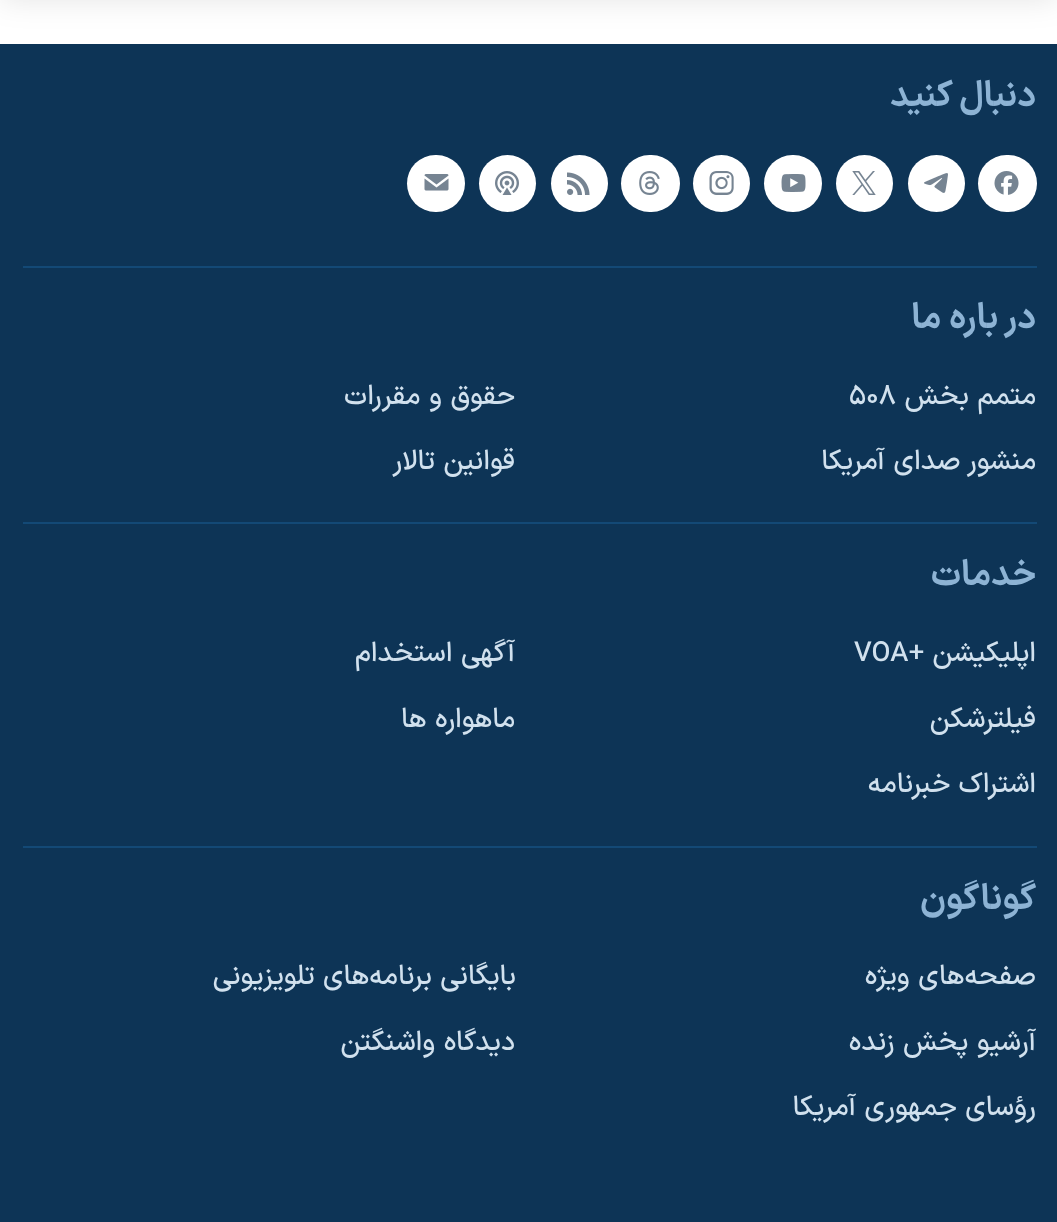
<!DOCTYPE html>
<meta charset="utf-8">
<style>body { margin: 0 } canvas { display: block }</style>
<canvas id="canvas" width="1057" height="1222"></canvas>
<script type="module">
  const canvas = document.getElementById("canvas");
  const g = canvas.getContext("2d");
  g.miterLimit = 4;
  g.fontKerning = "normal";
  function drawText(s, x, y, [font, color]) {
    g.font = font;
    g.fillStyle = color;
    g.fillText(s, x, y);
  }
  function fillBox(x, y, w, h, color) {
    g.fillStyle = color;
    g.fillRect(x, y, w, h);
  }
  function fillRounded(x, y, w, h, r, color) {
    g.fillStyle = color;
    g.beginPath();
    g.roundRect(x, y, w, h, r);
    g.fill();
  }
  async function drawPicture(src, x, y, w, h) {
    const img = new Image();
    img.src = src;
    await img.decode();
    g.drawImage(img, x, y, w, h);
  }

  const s1 = ["bold 35.5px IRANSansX", "#8DB3D4"];
  const s2 = ["500 27.6px IRANSansX", "#D1E1EE"];

  fillBox(0, 0, 1057, 1222, "#FFFFFF");
  fillBox(0, 44, 1057, 1178, "#0D3456");
  g.fillStyle = "rgba(0, 0, 0, 0.1)";
  g.filter = "blur(15px)";
  g.beginPath();
  g.rect(0, -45, 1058, 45);
  g.fill();
  g.filter = "none";
  g.direction = "rtl";
  drawText("دنبال کنید", 1036, 106, s1);
  fillRounded(978, 155, 59, 57, 28.5, "#FFFFFF");
  await drawPicture("pic1.png", 994, 171, 25, 24);
  g.beginPath();
  g.arc(936.5, 183.5, 28.5, 0, Math.PI * 2);
  g.fill();
  await drawPicture("pic2.png", 924, 173, 24, 20);
  g.beginPath();
  g.arc(864.5, 183.5, 28.5, 0, Math.PI * 2);
  g.fill();
  await drawPicture("pic3.png", 852, 171, 24, 24);
  fillRounded(764, 155, 58, 57, 28.5, "#FFFFFF");
  await drawPicture("pic4.png", 781, 174, 25, 18);
  g.beginPath();
  g.arc(721.5, 183.5, 28.5, 0, Math.PI * 2);
  g.fill();
  await drawPicture("pic5.png", 709, 171, 25, 24);
  fillRounded(621, 155, 59, 57, 28.5, "#FFFFFF");
  await drawPicture("pic6.png", 639, 171, 21, 24);
  g.beginPath();
  g.arc(579.5, 183.5, 28.5, 0, Math.PI * 2);
  g.fill();
  await drawPicture("pic7.png", 567, 172, 23, 23);
  g.beginPath();
  g.arc(507.5, 183.5, 28.5, 0, Math.PI * 2);
  g.fill();
  await drawPicture("pic8.png", 495, 171, 24, 24);
  fillRounded(407, 155, 58, 57, 28.5, "#FFFFFF");
  await drawPicture("pic9.png", 424, 174, 25, 17);
  fillBox(23, 266, 1014, 2, "#134976");
  drawText("در باره ما", 1036, 328, s1);
  drawText("متمم بخش", 1036, 404, s2);
  g.direction = "ltr";
  drawText("۵۰۸", 849, 404, s2);
  g.direction = "rtl";
  drawText("حقوق و مقررات", 515, 404, s2);
  drawText("منشور صدای آمریکا", 1036, 469, s2);
  drawText("قوانین تالار", 515, 469, s2);
  fillBox(23, 522, 1014, 2, "#134976");
  drawText("خدمات", 1036, 585, s1);
  drawText("اپلیکیشن +", 1036, 661, s2);
  g.direction = "ltr";
  drawText("VOA", 854, 661, s2);
  g.direction = "rtl";
  drawText("آگهی استخدام", 515, 661, s2);
  drawText("فیلترشکن", 1036, 727, s2);
  drawText("ماهواره ها", 515, 727, s2);
  drawText("اشتراک خبرنامه", 1036, 792, s2);
  fillBox(23, 846, 1014, 2, "#134976");
  drawText("گوناگون", 1036, 909, s1);
  drawText("صفحه‌های ویژه", 1036, 984, s2);
  drawText("بایگانی برنامه‌های تلویزیونی", 516, 984, s2);
  drawText("آرشیو پخش زنده", 1036, 1050, s2);
  drawText("دیدگاه‌ واشنگتن", 515, 1050, s2);
  drawText("رؤسای جمهوری آمریکا", 1036, 1115, s2);
</script>
